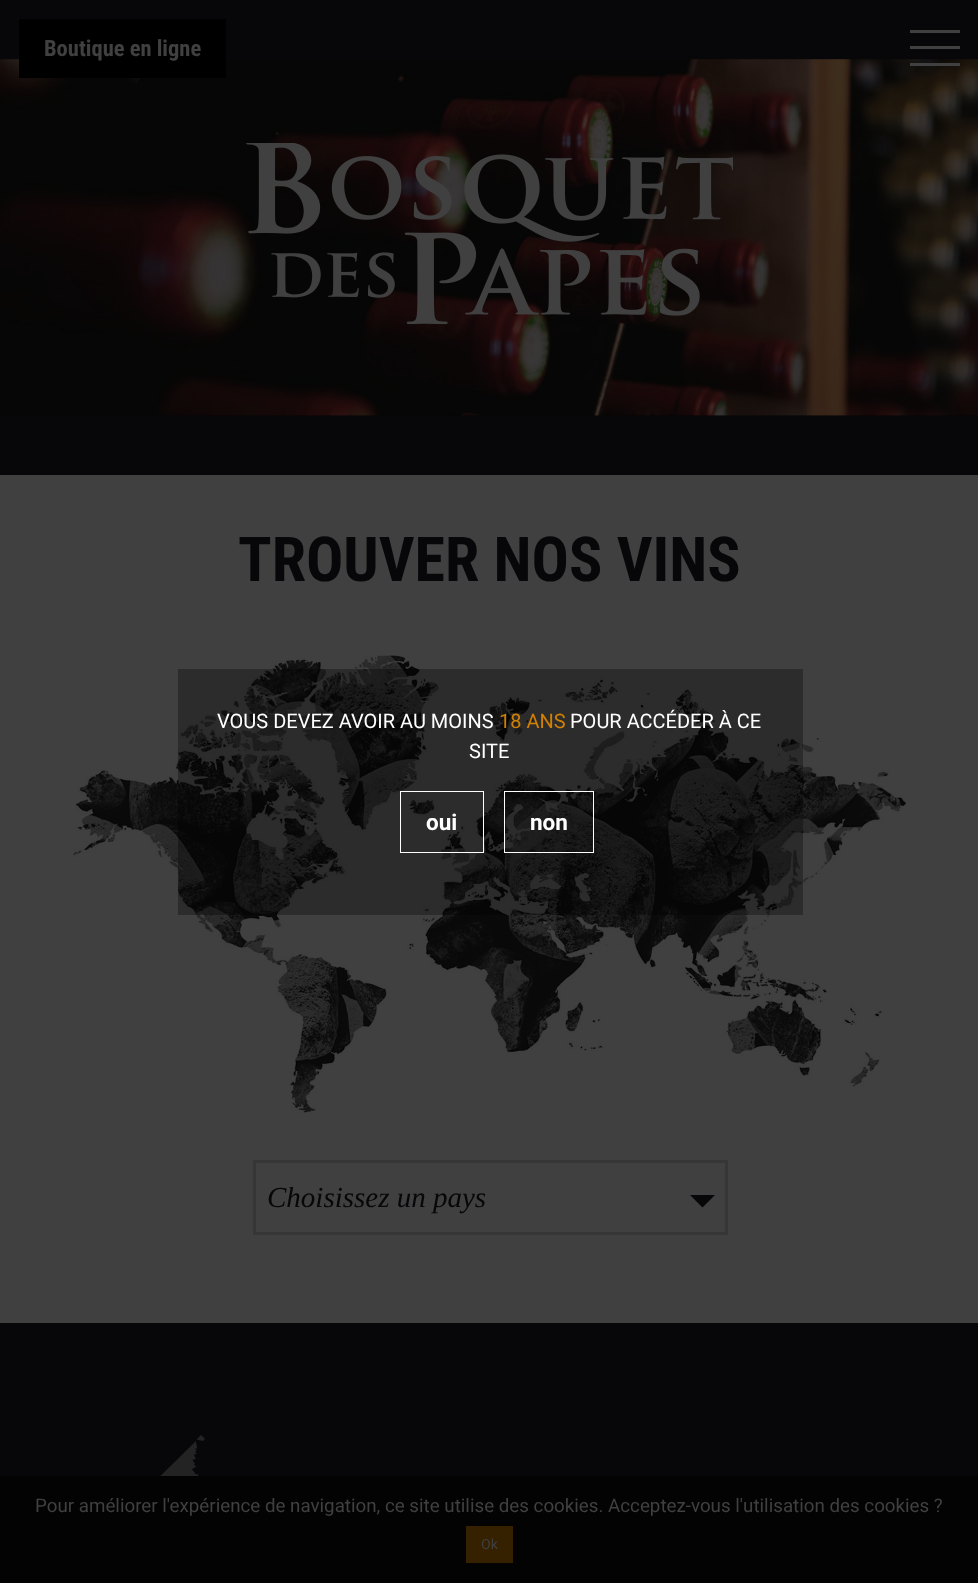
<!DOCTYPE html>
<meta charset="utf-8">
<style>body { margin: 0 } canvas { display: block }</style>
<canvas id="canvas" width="978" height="1583"></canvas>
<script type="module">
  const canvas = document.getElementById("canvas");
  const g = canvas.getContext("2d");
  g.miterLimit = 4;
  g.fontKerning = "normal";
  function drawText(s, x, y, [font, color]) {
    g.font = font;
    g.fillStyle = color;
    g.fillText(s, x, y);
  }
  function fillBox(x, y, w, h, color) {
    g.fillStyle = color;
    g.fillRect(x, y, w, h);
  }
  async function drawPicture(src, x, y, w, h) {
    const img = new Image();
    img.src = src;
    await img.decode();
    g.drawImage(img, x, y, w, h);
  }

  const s1 = ["bold 22.5px Roboto Condensed", "#404040"];
  const s2 = ["bold 62px Roboto Condensed", "#070608"];
  const s3 = ["italic 29px Liberation Serif", "#070608"];
  const s4 = ["18.75px Roboto", "#404040"];
  const s5 = ["14px Roboto", "#404040"];
  const s6 = ["20px Roboto", "#FFFFFF"];
  const s7 = ["20px Roboto", "#D18001"];
  const s8 = ["bold 22.5px Roboto", "#FFFFFF"];

  fillBox(0, 0, 978, 1583, "#404040");
  fillBox(0, 0, 978, 475, "#070608");
  await drawPicture("pic1.png", 0, 59, 978, 357);
  fillBox(19, 19, 207, 59, "#000000");
  drawText("Boutique en ligne", 44, 56, s1);
  fillBox(910, 30, 50, 3, "#404040");
  fillBox(910, 46, 50, 3, "#404040");
  fillBox(910, 63, 50, 3, "#404040");
  await drawPicture("pic2.png", 246, 143, 487, 182);
  drawText("TROUVER NOS VINS", 238, 581, s2);
  await drawPicture("pic3.png", 73, 655, 833, 459);
  g.strokeStyle = "#363636";
  g.lineWidth = 3;
  g.strokeRect(254.5, 1161.5, 472, 72);
  drawText("Choisissez un pays", 267, 1207, s3);
  g.beginPath();
  g.moveTo(690, 1195);
  g.lineTo(715, 1195);
  g.lineTo(702.5, 1207.5);
  g.closePath();
  g.fill();
  fillBox(0, 1323, 978, 153, "#070608");
  await drawPicture("pic4.png", 160, 1435, 46, 41);
  fillBox(0, 1476, 978, 107, "#030303");
  drawText("Pour améliorer l'expérience de navigation, ce site utilise des cookies. Acceptez-vous l'utilisation des cookies ?", 35, 1512, s4);
  fillBox(466, 1526, 47, 37, "#352000");
  drawText("Ok", 481, 1549, s5);
  fillBox(178, 669, 625, 246, "rgba(0, 0, 0, 0.31)");
  drawText("VOUS DEVEZ AVOIR AU MOINS", 217, 728, s6);
  drawText("18 ANS", 499, 728, s7);
  drawText("POUR ACCÉDER À CE", 570, 728, s6);
  drawText("SITE", 469, 758, s6);
  g.strokeStyle = "#FFFFFF";
  g.lineWidth = 1;
  g.strokeRect(400.5, 791.5, 83, 61);
  drawText("oui", 426, 830, s8);
  g.strokeRect(504.5, 791.5, 89, 61);
  drawText("non", 530, 830, s8);
</script>
